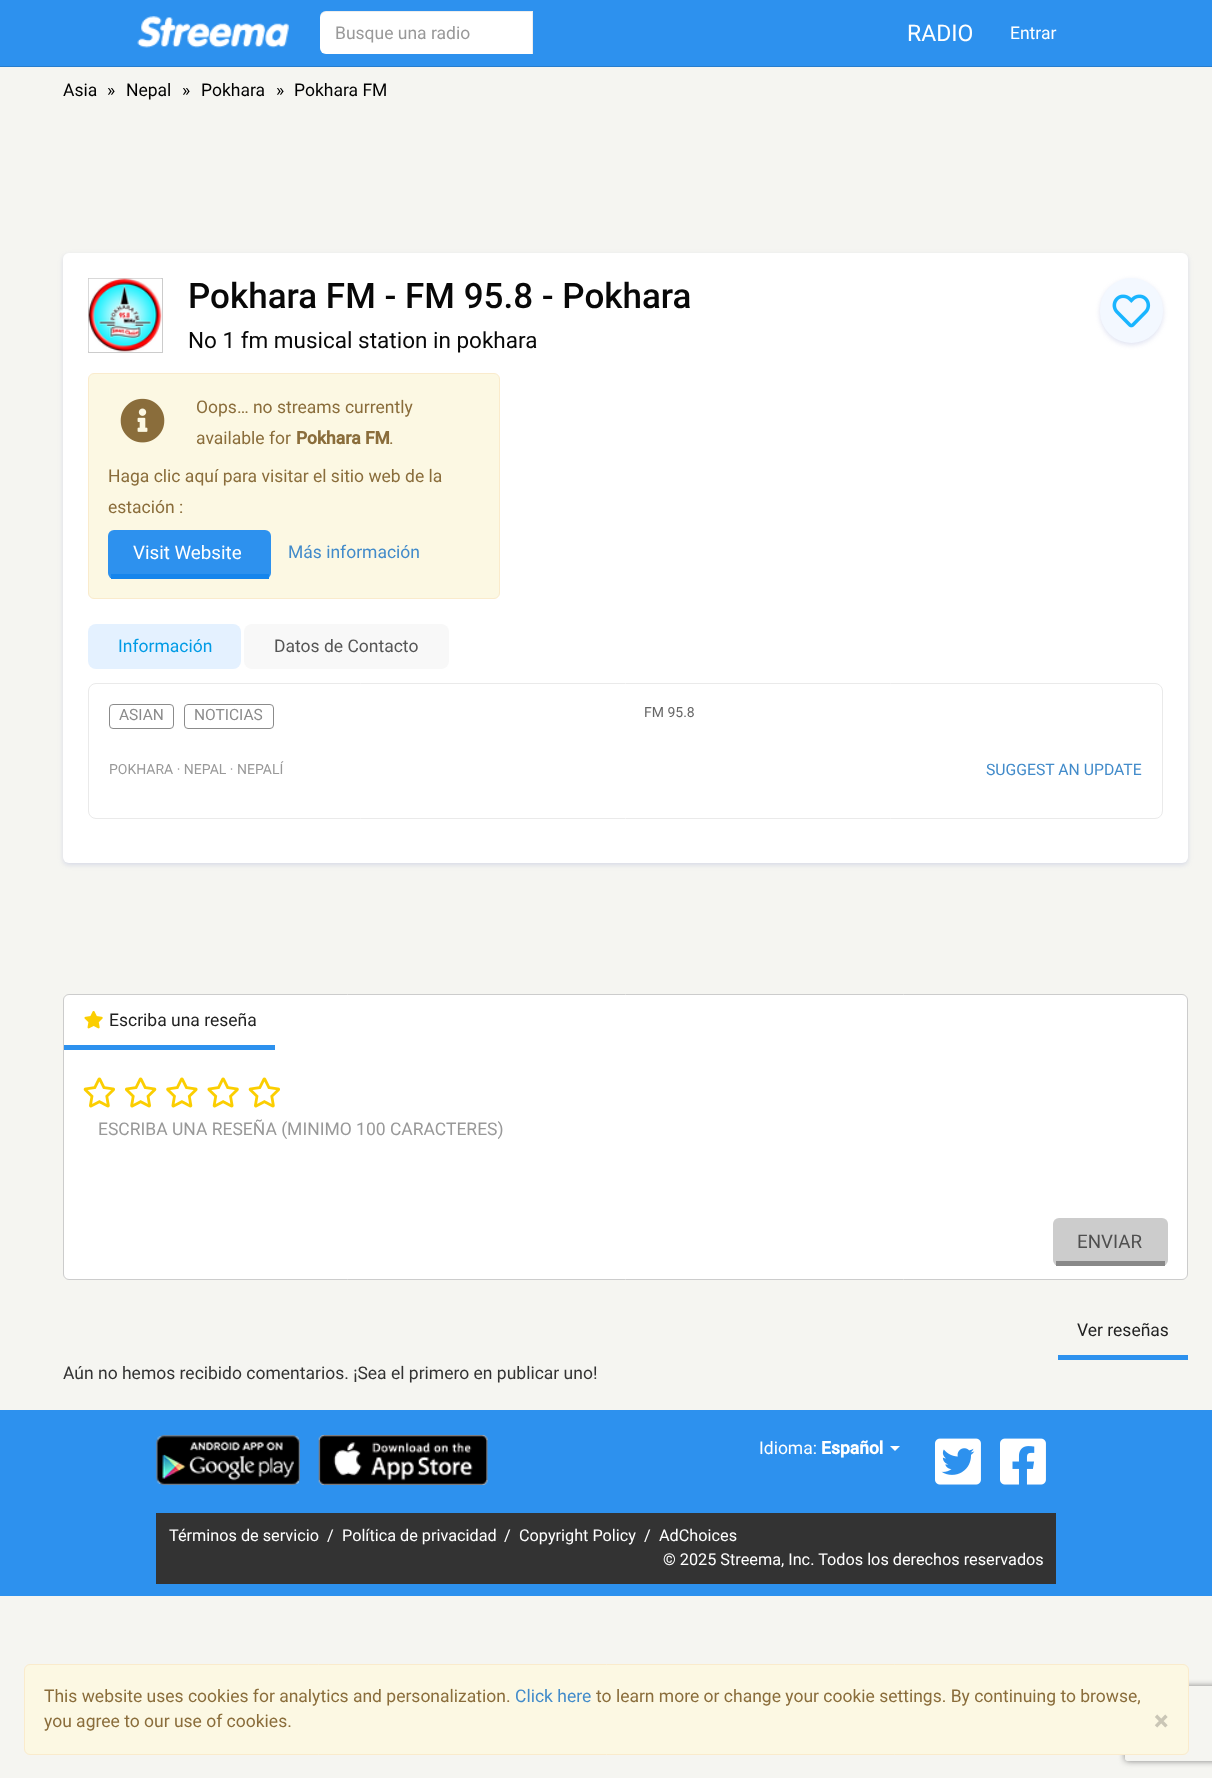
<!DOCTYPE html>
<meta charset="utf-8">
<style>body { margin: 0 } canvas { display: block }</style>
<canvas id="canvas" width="1212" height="1778"></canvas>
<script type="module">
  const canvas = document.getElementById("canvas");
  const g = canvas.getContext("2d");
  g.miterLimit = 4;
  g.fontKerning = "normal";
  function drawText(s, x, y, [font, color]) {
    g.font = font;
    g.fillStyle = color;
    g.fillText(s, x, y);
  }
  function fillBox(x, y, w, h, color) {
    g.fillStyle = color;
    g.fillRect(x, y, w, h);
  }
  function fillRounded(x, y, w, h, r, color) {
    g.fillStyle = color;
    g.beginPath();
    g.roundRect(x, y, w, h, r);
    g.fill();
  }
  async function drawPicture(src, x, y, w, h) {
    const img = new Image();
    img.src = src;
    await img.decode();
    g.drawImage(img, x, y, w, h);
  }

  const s1 = ["17.5px Roboto", "#999999"];
  const s2 = ["23px Roboto", "#FFFFFF"];
  const s3 = ["17.5px Roboto", "#FFFFFF"];
  const s4 = ["17.5px Roboto", "#000000"];
  const s5 = ["500 35px Roboto", "#080808"];
  const s6 = ["22.5px Roboto", "#080808"];
  const s7 = ["17.5px Roboto", "#8A6D3B"];
  const s8 = ["bold 17.5px Roboto", "#8A6D3B"];
  const s9 = ["18.75px Roboto", "#FFFFFF"];
  const s10 = ["17.5px Roboto", "#428BCA"];
  const s11 = ["17.5px Roboto", "#009BE5"];
  const s12 = ["17.5px Roboto", "#555555"];
  const s13 = ["15.5px Roboto", "#8B8B8B"];
  const s14 = ["14px Roboto", "#666666"];
  const s15 = ["14px Roboto", "#999999"];
  const s16 = ["15.75px Roboto", "#428BCA"];
  const s17 = ["17.5px Roboto", "#222222"];
  const s18 = ["18.75px Roboto", "#4F4F4F"];
  const s19 = ["17.5px Roboto", "#333333"];
  const s20 = ["bold 17.5px Roboto", "#FFFFFF"];
  const s21 = ["16.25px Roboto", "#FFFFFF"];
  const s22 = ["bold 26px Roboto", "#CAC6B6"];

  fillBox(0, 0, 1212, 1778, "#F5F5F1");
  fillBox(0, 0, 1212, 66, "#2D91EE");
  fillBox(0, 66, 1212, 1, "#277DCD");
  await drawPicture("pic1.png", 137, 16, 152, 32);
  g.fillStyle = "#FFFFFF";
  g.beginPath();
  g.roundRect(320, 11, 213, 43, [6, 0, 0, 6]);
  g.fill();
  g.fillStyle = "rgba(0, 0, 0, 0.07)";
  g.beginPath();
  g.moveTo(326, 12);
  g.lineTo(532, 12);
  g.lineTo(532, 54);
  g.lineTo(533, 54);
  g.lineTo(533, 11);
  g.lineTo(326, 11);
  g.bezierCurveTo(323, 11, 320, 14, 320, 17);
  g.lineTo(320, 19);
  g.bezierCurveTo(320, 15, 323, 12, 326, 12);
  g.closePath();
  g.fill();
  drawText("Busque una radio", 335, 39, s1);
  drawText("RADIO", 907, 41, s2);
  drawText("Entrar", 1010, 39, s3);
  drawText("Asia", 63, 96, s4);
  drawText("»", 107, 96, s4);
  drawText("Nepal", 126, 96, s4);
  drawText("»", 182, 96, s4);
  drawText("Pokhara", 201, 96, s4);
  drawText("»", 276, 96, s4);
  drawText("Pokhara FM", 294, 96, s4);
  g.fillStyle = "rgba(127, 139, 201, 0.25)";
  g.filter = "blur(2.5px)";
  g.beginPath();
  g.roundRect(63, 255, 1125, 610, 6);
  g.fill();
  g.filter = "none";
  fillRounded(63, 253, 1125, 610, 6, "#FFFFFF");
  g.strokeStyle = "#CCCCCC";
  g.strokeRect(88.5, 278.5, 74, 74);
  await drawPicture("pic2.png", 88, 278, 74, 74);
  drawText("Pokhara FM - FM 95.8 - Pokhara", 188, 308, s5);
  drawText("No 1 fm musical station in pokhara", 188, 348, s6);
  g.fillStyle = "rgba(127, 139, 201, 0.25)";
  g.filter = "blur(2.5px)";
  g.beginPath();
  g.roundRect(1100, 280, 63, 65, 31.5);
  g.fill();
  g.filter = "none";
  fillRounded(1100, 278, 63, 65, 31.5, "#F3F8FF");
  await drawPicture("pic3.png", 1112, 294, 39, 34);
  g.fillStyle = "#FCF8E3";
  g.beginPath();
  g.roundRect(88.5, 373.5, 411, 225, 5.5);
  g.fill();
  g.strokeStyle = "#FAEBCC";
  g.stroke();
  await drawPicture("pic4.png", 120, 398, 45, 45);
  drawText("Oops… no streams currently", 196, 413, s7);
  drawText("available for", 196, 444, s7);
  drawText("Pokhara FM", 296, 444, s8);
  drawText(".", 389, 444, s7);
  drawText("Haga clic aquí para visitar el sitio web de la", 108, 482, s7);
  drawText("estación :", 108, 513, s7);
  fillRounded(108, 530, 163, 49, 6, "#2D91EE");
  fillBox(111, 574, 158, 5, "#1585EC");
  drawText("Visit Website", 133, 559, s9);
  drawText("Más información", 288, 558, s10);
  fillRounded(88, 624, 153, 45, 8, "#E4F1FF");
  drawText("Información", 118, 652, s11);
  fillRounded(244, 624, 205, 45, 8, "#F8F8F8");
  drawText("Datos de Contacto", 274, 652, s12);
  g.beginPath();
  g.roundRect(88.5, 683.5, 1074, 135, 7.5);
  g.strokeStyle = "#EAEAEA";
  g.stroke();
  g.beginPath();
  g.roundRect(109.5, 704.5, 64, 24, 3.5);
  g.strokeStyle = "#8B8B8B";
  g.stroke();
  drawText("ASIAN", 119, 720, s13);
  g.beginPath();
  g.roundRect(184.5, 704.5, 89, 24, 3.5);
  g.stroke();
  drawText("NOTICIAS", 194, 720, s13);
  drawText("FM 95.8", 644, 717, s14);
  drawText("POKHARA · NEPAL · NEPALÍ", 109, 774, s15);
  drawText("SUGGEST AN UPDATE", 986, 775, s16);
  g.fillStyle = "#FFFFFF";
  g.beginPath();
  g.roundRect(63.5, 994.5, 1124, 285, 5.5);
  g.fill();
  g.strokeStyle = "#CCCCCC";
  g.stroke();
  fillBox(64, 1045, 211, 5, "#2D91EE");
  await drawPicture("pic5.png", 84, 1011, 19, 18);
  drawText("Escriba una reseña", 109, 1026, s17);
  await drawPicture("pic6.png", 83, 1077, 32, 31);
  await drawPicture("pic7.png", 125, 1077, 32, 31);
  await drawPicture("pic8.png", 166, 1077, 32, 31);
  await drawPicture("pic9.png", 207, 1077, 32, 31);
  await drawPicture("pic6.png", 248, 1077, 32, 31);
  drawText("ESCRIBA UNA RESEÑA (MINIMO 100 CARACTERES)", 98, 1135, s1);
  fillRounded(1053, 1218, 115, 48, 6, "#CCCCCC");
  fillBox(1056, 1261, 109, 5, "#898989");
  drawText("ENVIAR", 1077, 1248, s18);
  g.save();
  g.beginPath();
  g.moveTo(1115, 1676);
  g.lineTo(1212, 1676);
  g.lineTo(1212, 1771);
  g.lineTo(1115, 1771);
  g.closePath();
  g.moveTo(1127.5, 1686);
  g.lineTo(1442.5, 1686);
  g.bezierCurveTo(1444, 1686, 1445, 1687, 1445, 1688.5);
  g.lineTo(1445, 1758.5);
  g.bezierCurveTo(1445, 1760, 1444, 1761, 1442.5, 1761);
  g.lineTo(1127.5, 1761);
  g.bezierCurveTo(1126, 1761, 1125, 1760, 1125, 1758.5);
  g.lineTo(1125, 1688.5);
  g.bezierCurveTo(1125, 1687, 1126, 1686, 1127.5, 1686);
  g.closePath();
  g.clip("evenodd");
  g.fillStyle = "#808080";
  g.filter = "blur(3px)";
  g.beginPath();
  g.roundRect(1125, 1686, 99, 75, 2.5);
  g.fill();
  g.filter = "none";
  g.restore();
  fillBox(1058, 1355, 130, 5, "#2D91EE");
  drawText("Ver reseñas", 1077, 1336, s17);
  drawText("Aún no hemos recibido comentarios. ¡Sea el primero en publicar uno!", 63, 1379, s19);
  fillBox(0, 1410, 1212, 186, "#2D91EE");
  await drawPicture("pic10.png", 156, 1435, 144, 50);
  await drawPicture("pic11.png", 318, 1435, 170, 50);
  drawText("Idioma:", 759, 1454, s3);
  drawText("Español", 821, 1454, s20);
  g.beginPath();
  g.moveTo(890, 1446);
  g.lineTo(900, 1446);
  g.lineTo(895, 1451);
  g.closePath();
  g.fill();
  await drawPicture("pic12.png", 935, 1438, 46, 47);
  await drawPicture("pic13.png", 1000, 1438, 46, 47);
  fillBox(156, 1513, 900, 71, "#333333");
  drawText("Términos de servicio", 169, 1541, s21);
  drawText("/", 327, 1541, s21);
  drawText("Política de privacidad", 342, 1541, s21);
  drawText("/", 504, 1541, s21);
  drawText("Copyright Policy", 519, 1541, s21);
  drawText("/", 644, 1541, s21);
  drawText("AdChoices", 659, 1541, s21);
  drawText("© 2025 Streema, Inc. Todos los derechos reservados", 663, 1565, s21);
  g.fillStyle = "#FCF8E3";
  g.beginPath();
  g.roundRect(24.5, 1664.5, 1164, 90, 5.5);
  g.fill();
  g.strokeStyle = "#FAEBCC";
  g.stroke();
  drawText("This website uses cookies for analytics and personalization.", 44, 1702, s7);
  drawText("Click here", 515, 1702, s10);
  drawText("to learn more or change your cookie settings. By continuing to browse,", 596, 1702, s7);
  drawText("you agree to our use of cookies.", 44, 1727, s7);
  drawText("×", 1154, 1730, s22);
</script>
